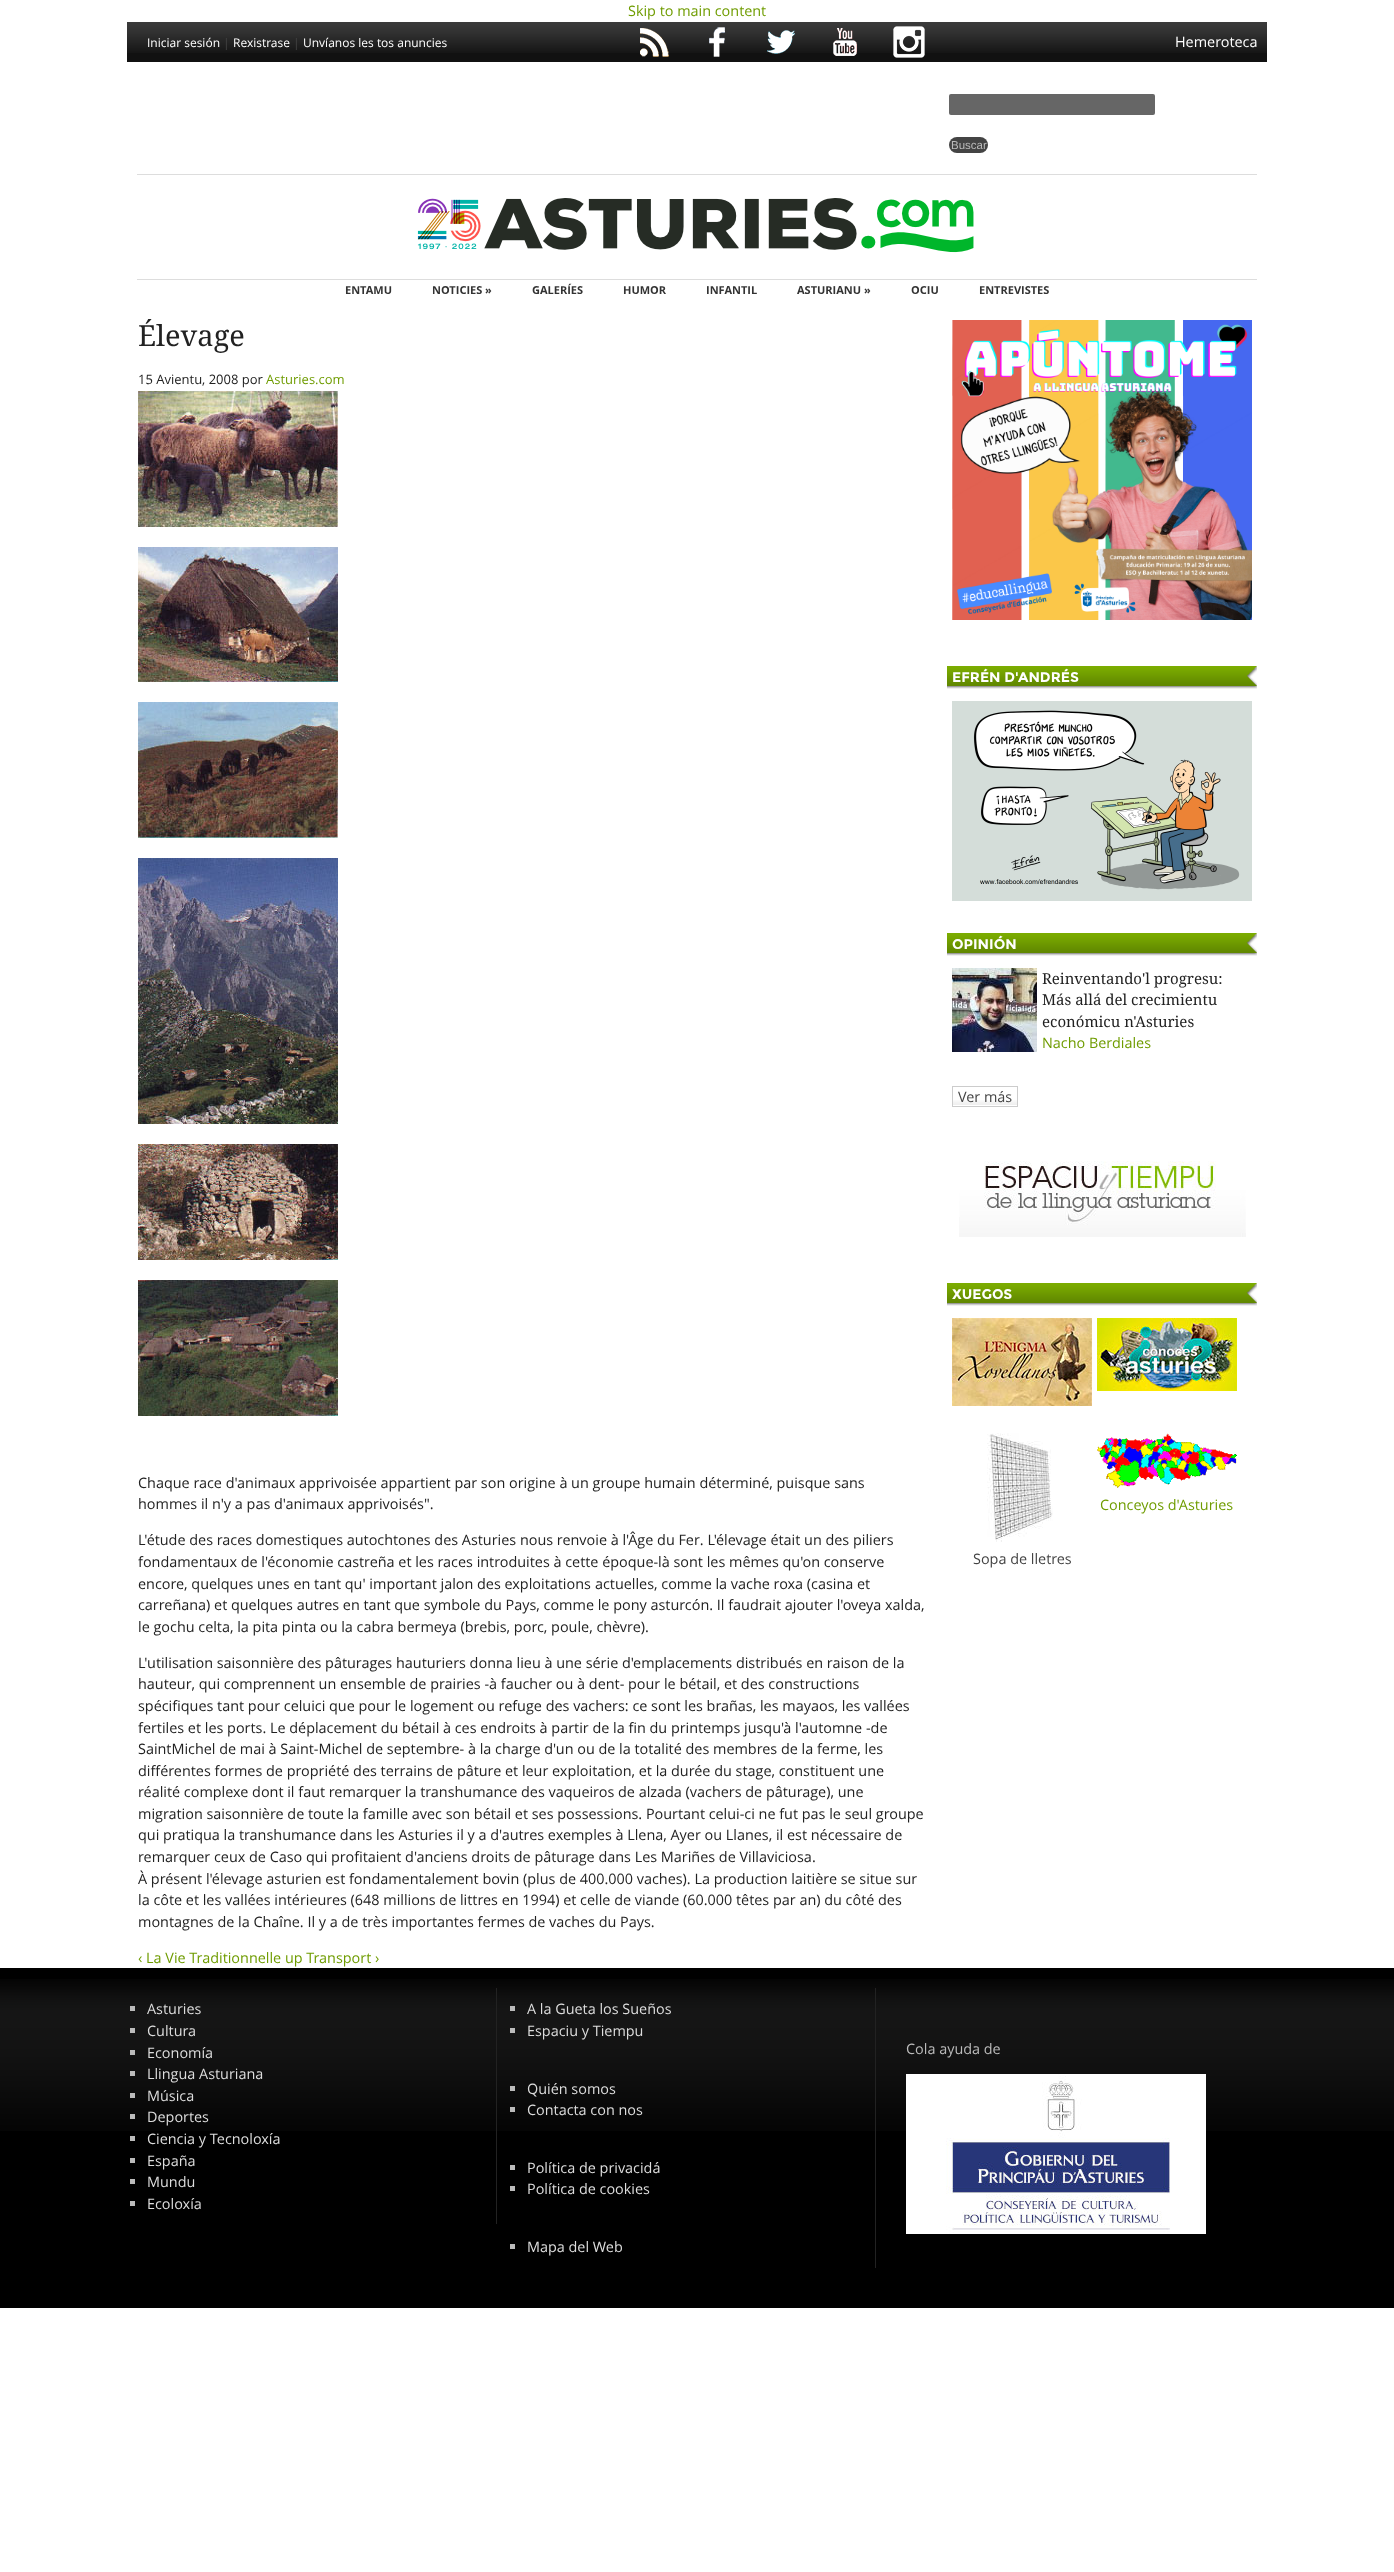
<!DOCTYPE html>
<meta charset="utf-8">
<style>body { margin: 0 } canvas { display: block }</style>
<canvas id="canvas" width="1394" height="2572"></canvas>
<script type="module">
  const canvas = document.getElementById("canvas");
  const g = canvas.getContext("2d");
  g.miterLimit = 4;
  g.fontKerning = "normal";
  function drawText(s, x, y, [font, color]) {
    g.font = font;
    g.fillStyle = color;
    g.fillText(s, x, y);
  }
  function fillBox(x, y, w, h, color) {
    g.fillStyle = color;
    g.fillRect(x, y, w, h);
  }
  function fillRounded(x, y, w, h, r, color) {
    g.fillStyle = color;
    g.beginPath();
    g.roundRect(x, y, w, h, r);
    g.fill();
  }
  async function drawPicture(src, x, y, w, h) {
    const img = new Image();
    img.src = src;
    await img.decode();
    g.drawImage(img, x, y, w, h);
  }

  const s1 = ["14.4px Open Sans", "#6F9C00"];
  const s2 = ["12px Open Sans", "#FFFFFF"];
  const s3 = ["12px Open Sans", "#444444"];
  const s4 = ["14.4px Open Sans", "#FFFFFF"];
  const s5 = ["11.5px Liberation Sans", "#BBBBBB"];
  const s6 = ["bold 11px Open Sans", "#333333"];
  const s7 = ["29px Droid Serif", "#222222"];
  const s8 = ["13px Open Sans", "#222222"];
  const s9 = ["13px Open Sans", "#6F9C00"];
  const s10 = ["14.4px Open Sans", "#222222"];
  const s11 = ["bold 14px Montserrat", "#FFFFFF"];
  const s12 = ["15px Droid Serif", "#222222"];
  const s13 = ["14.4px Open Sans", "#444444"];
  const s14 = ["14.4px Open Sans", "#DDDDDD"];
  const s15 = ["14.4px Open Sans", "#BBBBBB"];

  fillBox(0, 0, 1394, 2572, "#FFFFFF");
  drawText("Skip to main content", 628, 16, s1);
  fillBox(127, 53, 1140, 9, "#111111");
  await drawPicture("pic1.png", 127, 22, 1140, 31);
  drawText("Iniciar sesión", 147, 47, s2);
  drawText("|", 223, 47, s3);
  drawText("Rexistrase", 233, 47, s2);
  drawText("|", 293, 47, s3);
  drawText("Unvíanos les tos anuncies", 303, 47, s2);
  await drawPicture("pic2.png", 640, 28, 29, 29);
  await drawPicture("pic3.png", 709, 27, 16, 30);
  await drawPicture("pic4.png", 767, 30, 28, 24);
  await drawPicture("pic5.png", 833, 28, 24, 28);
  await drawPicture("pic6.png", 893, 26, 32, 32);
  drawText("Hemeroteca", 1175, 47, s4);
  fillRounded(949, 94, 206, 21, 2, "#666666");
  fillRounded(949, 137, 39, 16, 8, "#444444");
  drawText("Buscar", 951, 149, s5);
  fillBox(137, 174, 1120, 1, "#DDDDDD");
  await drawPicture("pic7.png", 417, 198, 557, 55);
  fillBox(137, 279, 1120, 1, "#DDDDDD");
  drawText("ENTAMU", 345, 294, s6);
  drawText("NOTICIES »", 432, 294, s6);
  drawText("GALERÍES", 532, 294, s6);
  drawText("HUMOR", 623, 294, s6);
  drawText("INFANTIL", 706, 294, s6);
  drawText("ASTURIANU »", 797, 294, s6);
  drawText("OCIU", 911, 294, s6);
  drawText("ENTREVISTES", 979, 294, s6);
  drawText("Élevage", 138, 346, s7);
  drawText("15 Avientu, 2008 por", 138, 384, s8);
  drawText("Asturies.com", 266, 384, s9);
  await drawPicture("pic8.png", 138, 391, 200, 136);
  await drawPicture("pic9.png", 138, 547, 200, 135);
  await drawPicture("pic10.png", 138, 702, 200, 136);
  await drawPicture("pic11.png", 138, 858, 200, 266);
  await drawPicture("pic12.png", 138, 1144, 200, 116);
  await drawPicture("pic13.png", 138, 1280, 200, 136);
  drawText("Chaque race d'animaux apprivoisée appartient par son origine à un groupe humain déterminé, puisque sans", 138, 1488, s10);
  drawText("hommes il n'y a pas d'animaux apprivoisés\".", 138, 1509, s10);
  drawText("L'étude des races domestiques autochtones des Asturies nous renvoie à l'Âge du Fer. L'élevage était un des piliers", 138, 1545, s10);
  drawText("fondamentaux de l'économie castreña et les races introduites à cette époque-là sont les mêmes qu'on conserve", 138, 1567, s10);
  drawText("encore, quelques unes en tant qu' important jalon des exploitations", 138, 1589, s10);
  drawText("actuelles, comme la vache roxa (casina et", 595, 1589, s10);
  drawText("carreñana) et quelques autres en tant que symbole du Pays, comme le pony asturcón. Il faudrait ajouter l'oveya xalda,", 138, 1610, s10);
  drawText("le gochu celta, la pita pinta ou la cabra bermeya (brebis, porc, poule, chèvre).", 138, 1632, s10);
  drawText("L'utilisation saisonnière des pâturages hauturiers donna lieu à une série d'emplacements distribués en raison de la", 138, 1668, s10);
  drawText("hauteur, qui comprennent un ensemble de prairies -à faucher ou à dent- pour le bétail, et des constructions", 138, 1689, s10);
  drawText("spécifiques tant pour celuici que pour le logement ou refuge des vachers: ce sont les brañas, les mayaos, les vallées", 138, 1711, s10);
  drawText("fertiles et les ports. Le déplacement du bétail à ces endroits à partir de la fin du printemps jusqu'à l'automne -de", 138, 1733, s10);
  drawText("SaintMichel de mai à Saint-Michel de septembre- à la charge d'un ou de la totalité des membres de la ferme, les", 138, 1754, s10);
  drawText("différentes formes de propriété des terrains de pâture et leur exploitation, et la durée du stage, constituent une", 138, 1776, s10);
  drawText("réalité complexe dont il faut remarquer la transhumance des vaqueiros de alzada (vachers de pâturage), une", 138, 1797, s10);
  drawText("migration saisonnière de toute la famille avec son bétail et ses possessions. Pourtant celui-ci ne fut pas le seul groupe", 138, 1819, s10);
  drawText("qui pratiqua la transhumance dans les Asturies il y a d'autres exemples à Llena, Ayer ou Llanes, il est nécessaire de", 138, 1840, s10);
  drawText("remarquer ceux de Caso qui profitaient d'anciens droits de pâturage dans Les Mariñes de Villaviciosa.", 138, 1862, s10);
  drawText("À présent l'élevage asturien est fondamentalement bovin (plus de 400.000 vaches). La production laitière se situe sur", 138, 1884, s10);
  drawText("la côte et les vallées intérieures (648 millions de littres en 1994) et celle de viande (60.000 têtes par an) du côté des", 138, 1905, s10);
  drawText("montagnes de la Chaîne. Il y a de très importantes fermes de vaches du Pays.", 138, 1927, s10);
  drawText("‹ La Vie Traditionnelle up Transport ›", 138, 1963, s1);
  await drawPicture("pic14.png", 952, 320, 300, 300);
  await drawPicture("pic15.png", 947, 666, 310, 23);
  drawText("EFRÉN D'ANDRÉS", 952, 682, s11);
  await drawPicture("pic16.png", 952, 701, 300, 200);
  await drawPicture("pic15.png", 947, 933, 310, 23);
  drawText("OPINIÓN", 952, 949, s11);
  await drawPicture("pic17.png", 952, 968, 85, 84);
  drawText("Reinventando'l progresu:", 1042, 984, s12);
  drawText("Más allá del crecimientu", 1042, 1005, s12);
  drawText("económicu n'Asturies", 1042, 1027, s12);
  drawText("Nacho Berdiales", 1042, 1048, s1);
  await drawPicture("pic18.png", 953, 1100, 64, 5);
  g.strokeStyle = "#CCCCCC";
  g.strokeRect(952.5, 1086.5, 65, 20);
  drawText("Ver más", 958, 1102, s13);
  await drawPicture("pic19.png", 959, 1161, 287, 76);
  await drawPicture("pic15.png", 947, 1283, 310, 23);
  drawText("XUEGOS", 952, 1299, s11);
  await drawPicture("pic20.png", 952, 1318, 140, 88);
  await drawPicture("pic21.png", 1097, 1318, 140, 73);
  await drawPicture("pic22.png", 1097, 1433, 140, 55);
  drawText("Conceyos d'Asturies", 1100, 1510, s1);
  await drawPicture("pic23.png", 987, 1433, 66, 109);
  drawText("Sopa de lletres", 973, 1564, s13);
  fillBox(0, 1968, 1394, 340, "#000000");
  await drawPicture("pic24.png", 0, 1979, 1394, 152);
  fillBox(496, 1988, 1, 236, "#222222");
  fillBox(130, 2006, 5, 5, "#BBBBBB");
  drawText("Asturies", 147, 2014, s14);
  fillBox(130, 2028, 5, 5, "#BBBBBB");
  drawText("Cultura", 147, 2036, s14);
  fillBox(130, 2050, 5, 5, "#BBBBBB");
  drawText("Economía", 147, 2058, s14);
  fillBox(130, 2071, 5, 5, "#BBBBBB");
  drawText("Llingua Asturiana", 147, 2079, s14);
  fillBox(130, 2093, 5, 5, "#BBBBBB");
  drawText("Música", 147, 2101, s14);
  fillBox(130, 2114, 5, 5, "#BBBBBB");
  drawText("Deportes", 147, 2122, s14);
  fillBox(130, 2136, 5, 5, "#BBBBBB");
  drawText("Ciencia y Tecnoloxía", 147, 2144, s14);
  fillBox(130, 2158, 5, 5, "#BBBBBB");
  drawText("España", 147, 2166, s14);
  fillBox(130, 2179, 5, 5, "#BBBBBB");
  drawText("Mundu", 147, 2187, s14);
  fillBox(130, 2201, 5, 5, "#BBBBBB");
  drawText("Ecoloxía", 147, 2209, s14);
  fillBox(875, 1988, 1, 280, "#222222");
  fillBox(510, 2006, 5, 5, "#BBBBBB");
  drawText("A la Gueta los Sueños", 527, 2014, s14);
  fillBox(510, 2028, 5, 5, "#BBBBBB");
  drawText("Espaciu y Tiempu", 527, 2036, s14);
  fillBox(510, 2086, 5, 5, "#BBBBBB");
  drawText("Quién somos", 527, 2094, s14);
  fillBox(510, 2107, 5, 5, "#BBBBBB");
  drawText("Contacta con nos", 527, 2115, s14);
  fillBox(510, 2165, 5, 5, "#BBBBBB");
  drawText("Política de privacidá", 527, 2173, s14);
  fillBox(510, 2186, 5, 5, "#BBBBBB");
  drawText("Política de cookies", 527, 2194, s14);
  fillBox(510, 2244, 5, 5, "#BBBBBB");
  drawText("Mapa del Web", 527, 2252, s14);
  drawText("Cola ayuda de", 906, 2054, s15);
  await drawPicture("pic25.png", 906, 2074, 300, 160);
</script>
